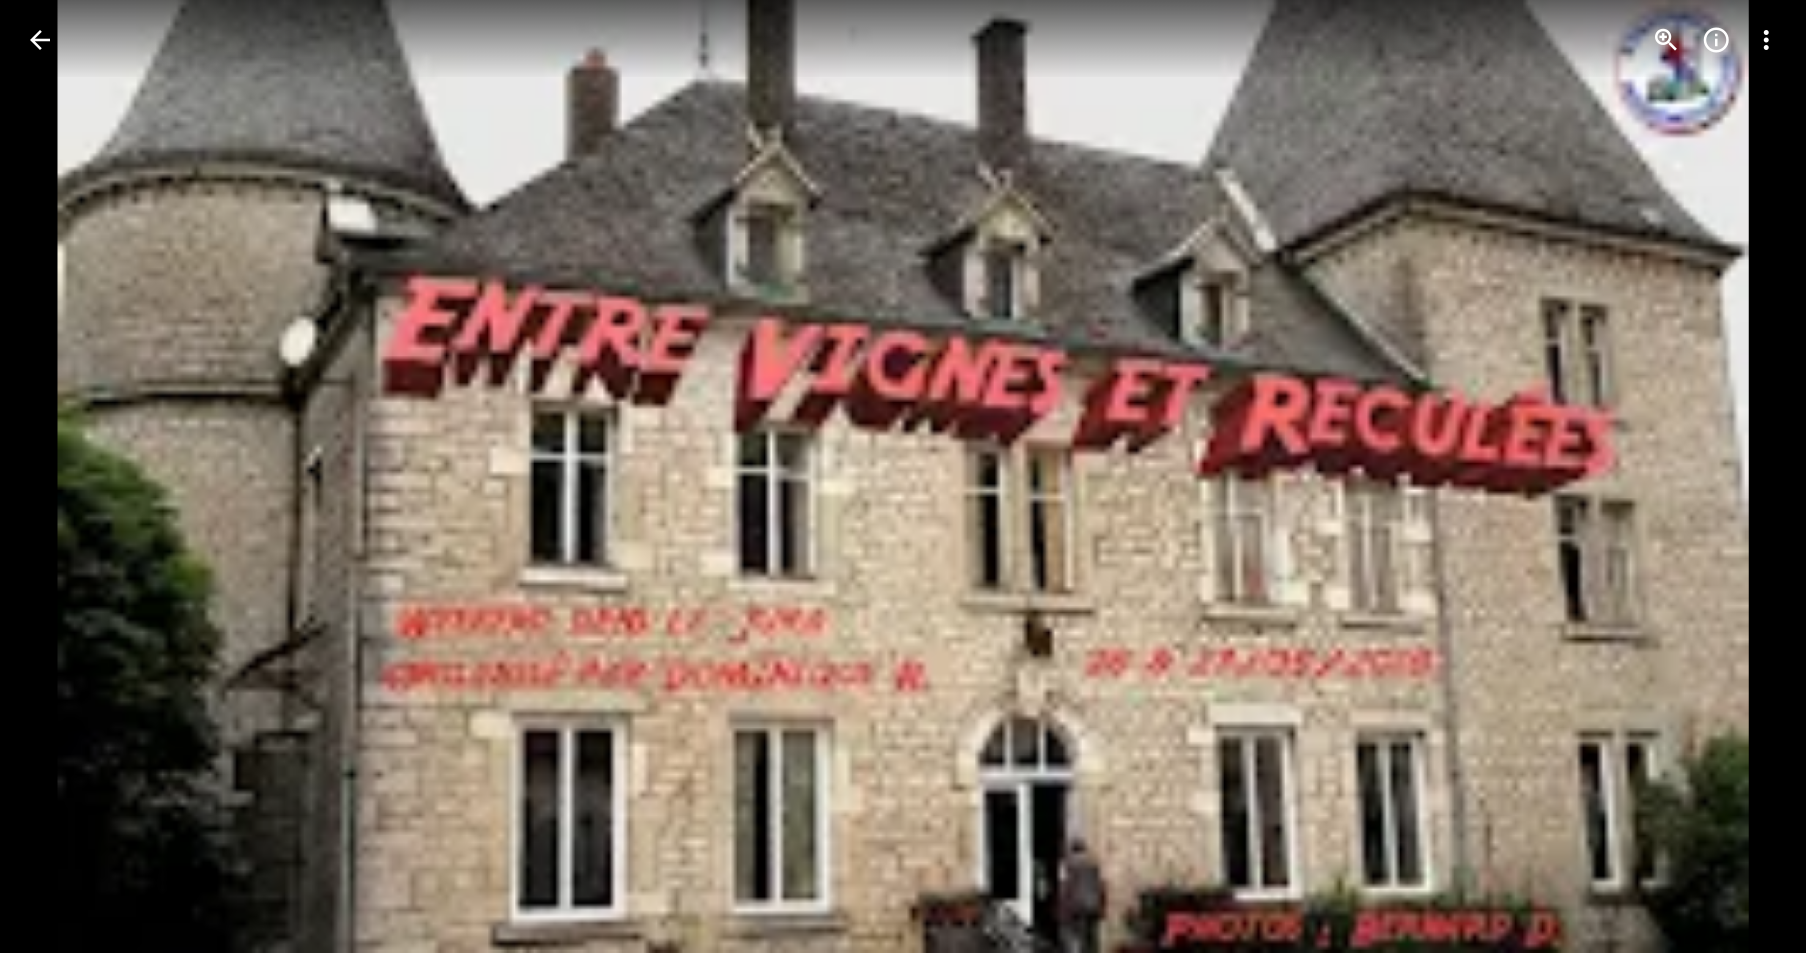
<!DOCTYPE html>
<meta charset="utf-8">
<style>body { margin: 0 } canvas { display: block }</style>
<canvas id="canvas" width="1806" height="953"></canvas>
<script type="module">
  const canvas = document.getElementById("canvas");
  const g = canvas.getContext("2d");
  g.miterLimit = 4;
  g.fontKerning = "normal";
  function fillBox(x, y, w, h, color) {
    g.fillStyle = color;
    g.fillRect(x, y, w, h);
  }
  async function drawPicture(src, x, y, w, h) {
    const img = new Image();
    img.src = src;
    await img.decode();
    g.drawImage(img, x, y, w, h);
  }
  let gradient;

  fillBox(0, 0, 1806, 953, "#000000");
  await drawPicture("pic5.png", 57, 0, 1692, 953);
  gradient = g.createLinearGradient(903, 0, 903, 80);
  gradient.addColorStop(0, "rgba(0, 0, 0, 0.6)");
  gradient.addColorStop(1, "rgba(0, 0, 0, 0)");
  g.fillStyle = gradient;
  g.fillRect(57, 0, 1692, 77);
  await drawPicture("pic1.png", 30, 30, 20, 20);
  await drawPicture("pic2.png", 1655, 28, 22, 23);
  await drawPicture("pic3.png", 1703, 27, 26, 26);
  await drawPicture("pic4.png", 1763, 30, 6, 20);
</script>
